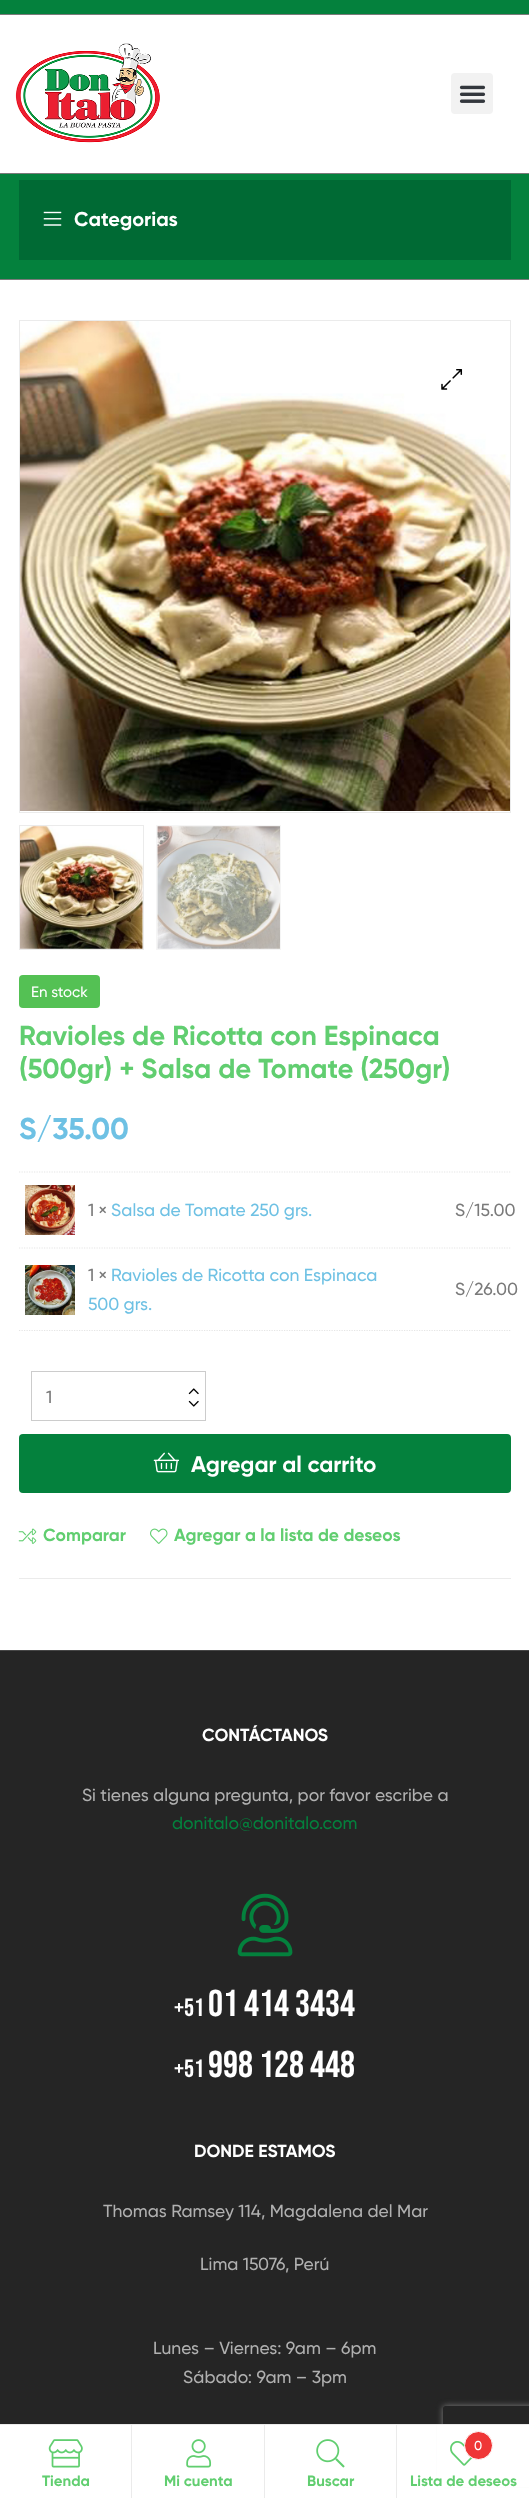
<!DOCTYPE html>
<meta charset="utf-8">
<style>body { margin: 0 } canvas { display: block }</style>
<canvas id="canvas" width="529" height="2498"></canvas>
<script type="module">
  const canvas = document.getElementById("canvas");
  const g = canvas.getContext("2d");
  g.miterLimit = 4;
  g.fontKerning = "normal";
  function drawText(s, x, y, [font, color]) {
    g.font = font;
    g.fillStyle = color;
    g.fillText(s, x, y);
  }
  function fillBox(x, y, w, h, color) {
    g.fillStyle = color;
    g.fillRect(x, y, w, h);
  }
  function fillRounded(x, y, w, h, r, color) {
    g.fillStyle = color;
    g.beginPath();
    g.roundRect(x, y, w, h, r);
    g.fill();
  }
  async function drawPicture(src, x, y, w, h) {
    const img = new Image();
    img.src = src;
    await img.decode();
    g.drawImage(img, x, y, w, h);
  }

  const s1 = ["bold 20px Gilroy", "#FFFFFF"];
  const s2 = ["500 15px Gilroy", "#FFFFFF"];
  const s3 = ["bold 27.5px Gilroy", "#61CE70"];
  const s4 = ["bold 30px Gilroy", "#6EC1E4"];
  const s5 = ["500 17.5px Gilroy", "#7A7A7A"];
  const s6 = ["500 17.5px Gilroy", "#6EC1E4"];
  const s7 = ["bold 22.5px Gilroy", "#FFFFFF"];
  const s8 = ["bold 17.5px Gilroy", "#61CE70"];
  const s9 = ["bold 17.5px Gilroy", "#FFFFFF"];
  const s10 = ["500 17.5px Gilroy", "#B0B0B0"];
  const s11 = ["500 17.5px Gilroy", "#04813D"];
  const s12 = ["25px Bebas Neue", "#FFFFFF"];
  const s13 = ["37.5px Bebas Neue", "#FFFFFF"];
  const s14 = ["bold 15px Gilroy", "#61CE70"];
  const s15 = ["500 13px Gilroy", "#FFFFFF"];

  fillBox(0, 0, 529, 2498, "#FFFFFF");
  fillBox(0, 0, 529, 14, "#04813D");
  fillBox(0, 14, 529, 1, "#7A7A7A");
  fillBox(0, 173, 529, 1, "#7A7A7A");
  await drawPicture("pic1.png", 15, 43, 145, 100);
  fillRounded(451, 73, 42, 41, 4, "#F2F2F2");
  await drawPicture("pic2.png", 459, 85, 27, 18);
  fillBox(0, 174, 529, 105, "#04813D");
  fillBox(0, 279, 529, 1, "#7A7A7A");
  fillBox(19, 180, 492, 80, "#006A34");
  await drawPicture("pic3.png", 43, 211, 19, 15);
  drawText("Categorias", 74, 226, s1);
  g.strokeStyle = "#EBEBEB";
  g.strokeRect(19.5, 320.5, 491, 492);
  await drawPicture("pic4.png", 20, 321, 490, 490);
  await drawPicture("pic5.png", 441, 369, 22, 21);
  g.strokeRect(19.5, 825.5, 124, 124);
  await drawPicture("pic6.png", 20, 826, 123, 123);
  g.strokeStyle = "#F5F5F5";
  g.strokeRect(156.5, 825.5, 124, 124);
  await drawPicture("pic7.png", 157, 826, 123, 123);
  fillRounded(19, 975, 81, 33, 4, "#54C154");
  drawText("En stock", 31, 997, s2);
  drawText("Ravioles de Ricotta con Espinaca", 19, 1045, s3);
  drawText("(500gr) + Salsa de Tomate (250gr)", 19, 1078, s3);
  drawText("S/35.00", 19, 1139, s4);
  g.beginPath();
  g.moveTo(19, 1172);
  g.lineTo(511, 1172);
  g.strokeStyle = "#E5E5E5";
  g.lineWidth = 1.2;
  g.setLineDash([1.25, 1.25]);
  g.stroke();
  g.beginPath();
  g.moveTo(19, 1248);
  g.lineTo(511, 1248);
  g.stroke();
  await drawPicture("pic8.png", 25, 1185, 50, 50);
  drawText("1 ×", 88, 1216, s5);
  drawText("Salsa de Tomate 250 grs.", 111, 1216, s6);
  drawText("S/15.00", 455, 1216, s5);
  g.beginPath();
  g.moveTo(19, 1330.5);
  g.lineTo(511, 1330.5);
  g.stroke();
  await drawPicture("pic9.png", 25, 1265, 50, 50);
  drawText("1 ×", 88, 1281, s5);
  drawText("Ravioles de Ricotta con Espinaca", 111, 1281, s6);
  drawText("500 grs.", 88, 1310, s6);
  drawText("S/26.00", 455, 1295, s5);
  g.strokeStyle = "#CCCCCC";
  g.lineWidth = 1;
  g.setLineDash([]);
  g.strokeRect(31.5, 1371.5, 174, 49);
  drawText("1", 46, 1403, s5);
  await drawPicture("pic10.png", 188, 1388, 11, 7);
  await drawPicture("pic11.png", 188, 1400, 11, 7);
  fillRounded(19, 1434, 492, 59, 4, "#04813D");
  await drawPicture("pic12.png", 153, 1452, 27, 21);
  drawText("Agregar al carrito", 191, 1472, s7);
  await drawPicture("pic13.png", 18, 1528, 19, 16);
  drawText("Comparar", 43, 1541, s8);
  await drawPicture("pic14.png", 150, 1528, 18, 16);
  drawText("Agregar a la lista de deseos", 174, 1541, s8);
  fillBox(19, 1578, 492, 1, "#EBEBEB");
  fillBox(0, 1651, 529, 773, "#252525");
  fillBox(0, 1650, 529, 1, "#464646");
  drawText("CONTÁCTANOS", 202, 1741, s9);
  drawText("Si tienes alguna pregunta, por favor escribe a", 82, 1801, s10);
  drawText("donitalo@donitalo.com", 172, 1829, s11);
  await drawPicture("pic15.png", 237, 1893, 56, 64);
  drawText("+51", 174, 2016, s12);
  drawText("01 414 3434", 208, 2016, s13);
  drawText("+51", 174, 2077, s12);
  drawText("998 128 448", 208, 2077, s13);
  drawText("DONDE ESTAMOS", 194, 2157, s9);
  drawText("Thomas Ramsey 114, Magdalena del Mar", 103, 2217, s10);
  drawText("Lima 15076, Perú", 200, 2270, s10);
  drawText("Lunes – Viernes: 9am – 6pm", 153, 2354, s10);
  drawText("Sábado: 9am – 3pm", 183, 2383, s10);
  g.save();
  g.beginPath();
  g.moveTo(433, 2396);
  g.lineTo(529, 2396);
  g.lineTo(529, 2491);
  g.lineTo(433, 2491);
  g.closePath();
  g.moveTo(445.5, 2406);
  g.lineTo(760.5, 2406);
  g.bezierCurveTo(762, 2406, 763, 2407, 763, 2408.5);
  g.lineTo(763, 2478.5);
  g.bezierCurveTo(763, 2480, 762, 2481, 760.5, 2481);
  g.lineTo(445.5, 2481);
  g.bezierCurveTo(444, 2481, 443, 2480, 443, 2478.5);
  g.lineTo(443, 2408.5);
  g.bezierCurveTo(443, 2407, 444, 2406, 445.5, 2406);
  g.closePath();
  g.clip("evenodd");
  g.fillStyle = "#808080";
  g.filter = "blur(3px)";
  g.beginPath();
  g.roundRect(443, 2406, 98, 75, 2.5);
  g.fill();
  g.filter = "none";
  g.restore();
  fillBox(0, 2424, 529, 1, "#EBEBEB");
  fillBox(131, 2425, 1, 73, "#EBEBEB");
  await drawPicture("pic16.png", 48, 2439, 35, 29);
  drawText("Tienda", 42, 2486, s14);
  fillBox(264, 2425, 1, 73, "#EBEBEB");
  await drawPicture("pic17.png", 186, 2439, 26, 29);
  drawText("Mi cuenta", 164, 2486, s14);
  fillBox(396, 2425, 1, 73, "#EBEBEB");
  await drawPicture("pic18.png", 316, 2439, 29, 29);
  drawText("Buscar", 307, 2486, s14);
  fillBox(437, 2425, 92, 62, "#FFFFFF");
  await drawPicture("pic19.png", 450, 2441, 23, 25);
  g.fillStyle = "#EF3636";
  g.beginPath();
  g.arc(478.5, 2445.5, 14, 0, Math.PI * 2);
  g.fill();
  g.strokeStyle = "#FFFFFF";
  g.stroke();
  drawText("0", 474, 2450, s15);
  drawText("Lista de deseos", 410, 2486, s14);
</script>
